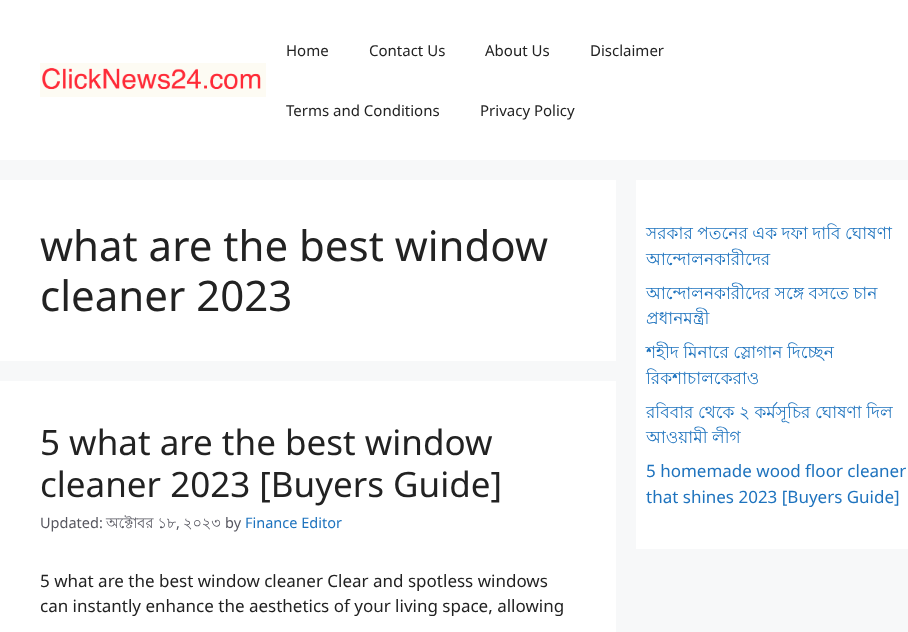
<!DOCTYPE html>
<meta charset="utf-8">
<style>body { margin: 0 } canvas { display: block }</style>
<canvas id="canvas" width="908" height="632"></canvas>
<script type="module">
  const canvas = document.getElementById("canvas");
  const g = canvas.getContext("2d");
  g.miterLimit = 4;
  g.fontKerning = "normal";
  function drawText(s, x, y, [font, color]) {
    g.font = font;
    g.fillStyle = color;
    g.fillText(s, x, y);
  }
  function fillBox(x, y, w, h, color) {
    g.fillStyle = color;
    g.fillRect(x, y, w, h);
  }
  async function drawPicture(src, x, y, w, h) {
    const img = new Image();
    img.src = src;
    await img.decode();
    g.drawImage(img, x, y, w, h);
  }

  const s1 = ["15px Noto Sans", "#222222"];
  const s2 = ["42px Noto Sans", "#222222"];
  const s3 = ["35px Noto Sans", "#222222"];
  const s4 = ["14.5px Noto Sans", "#575760"];
  const s5 = ["14.5px Lohit Bengali", "#575760"];
  const s6 = ["14.5px Noto Sans", "#1E73BE"];
  const s7 = ["17px Noto Sans", "#222222"];
  const s8 = ["17px Lohit Bengali", "#1E73BE"];
  const s9 = ["17px Noto Sans", "#1E73BE"];

  fillBox(0, 0, 908, 632, "#F7F8F9");
  fillBox(0, 0, 908, 160, "#FFFFFF");
  await drawPicture("pic1.png", 40, 63, 226, 34);
  drawText("Home", 286, 56, s1);
  drawText("Contact Us", 369, 56, s1);
  drawText("About Us", 485, 56, s1);
  drawText("Disclaimer", 590, 56, s1);
  drawText("Terms and Conditions", 286, 116, s1);
  drawText("Privacy Policy", 480, 116, s1);
  fillBox(0, 180, 616, 181, "#FFFFFF");
  drawText("what are the best window", 40, 261, s2);
  drawText("cleaner 2023", 40, 311, s2);
  fillBox(0, 381, 616, 251, "#FFFFFF");
  drawText("5 what are the best window", 40, 455, s3);
  drawText("cleaner 2023 [Buyers Guide]", 40, 497, s3);
  drawText("Updated:", 40, 528, s4);
  drawText("অক্টোবর ১৮", 106, 528, s5);
  drawText(",", 176, 528, s4);
  drawText("২০২৩", 183, 528, s5);
  drawText("by", 225, 528, s4);
  drawText("Finance Editor", 245, 528, s6);
  drawText("5 what are the best window cleaner Clear and spotless windows", 40, 587, s7);
  drawText("can instantly enhance the aesthetics of your living space, allowing", 40, 612, s7);
  fillBox(636, 180, 272, 369, "#FFFFFF");
  g.wordSpacing = "-0.25px";
  drawText("সরকার পতনের এক দফা দাবি ঘোষণা", 646, 239, s8);
  g.wordSpacing = "0px";
  drawText("আন্দোলনকারীদের", 646, 265, s8);
  g.wordSpacing = "-0.25px";
  drawText("আন্দোলনকারীদের সঙ্গে বসতে চান", 646, 299, s8);
  g.wordSpacing = "0px";
  drawText("প্রধানমন্ত্রী", 646, 324, s8);
  g.wordSpacing = "-0.25px";
  drawText("শহীদ মিনারে স্লোগান দিচ্ছেন", 646, 358, s8);
  g.wordSpacing = "0px";
  drawText("রিকশাচালকেরাও", 646, 384, s8);
  g.wordSpacing = "-0.25px";
  drawText("রবিবার থেকে ২ কর্মসূচির ঘোষণা দিল", 646, 418, s8);
  drawText("আওয়ামী লীগ", 646, 443, s8);
  g.wordSpacing = "0px";
  drawText("5 homemade wood floor cleaner", 646, 477, s9);
  drawText("that shines 2023 [Buyers Guide]", 646, 503, s9);
</script>
